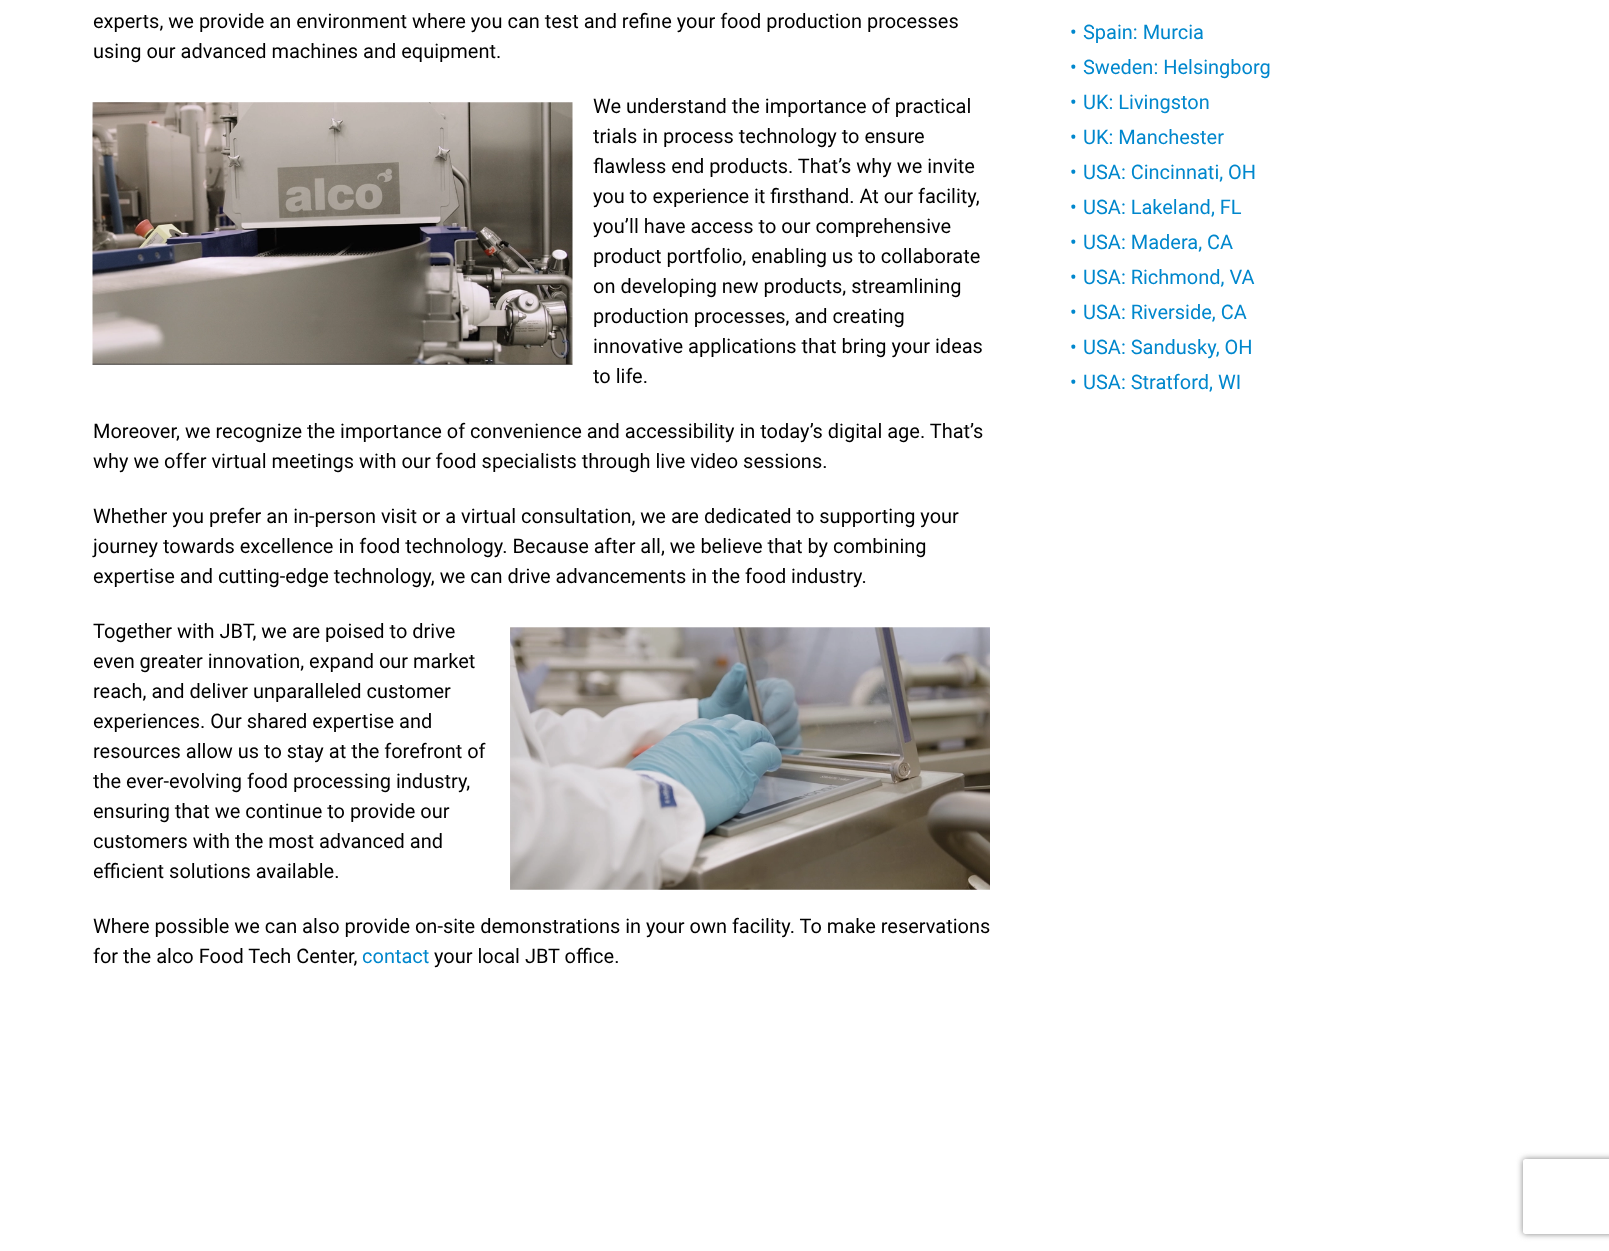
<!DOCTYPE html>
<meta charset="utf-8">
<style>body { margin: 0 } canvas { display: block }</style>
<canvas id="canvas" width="1609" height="1251"></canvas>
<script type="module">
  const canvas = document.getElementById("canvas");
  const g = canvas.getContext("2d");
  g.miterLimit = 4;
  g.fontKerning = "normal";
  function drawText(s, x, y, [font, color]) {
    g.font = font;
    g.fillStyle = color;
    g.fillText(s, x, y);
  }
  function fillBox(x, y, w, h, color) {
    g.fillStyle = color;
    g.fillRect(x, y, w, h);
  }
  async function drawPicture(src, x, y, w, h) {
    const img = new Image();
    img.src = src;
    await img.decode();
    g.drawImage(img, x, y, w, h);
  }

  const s1 = ["20px Roboto", "#000000"];
  const s2 = ["20px Roboto", "#0087CD"];

  fillBox(0, 0, 1609, 1251, "#FFFFFF");
  drawText("experts, we provide an environment where you can test and refine your food production processes", 93, 28, s1);
  drawText("using our advanced machines and equipment.", 93, 58, s1);
  await drawPicture("pic1.png", 92, 102, 481, 263);
  drawText("We understand the importance of practical", 593, 113, s1);
  drawText("trials in process technology to ensure", 593, 143, s1);
  drawText("flawless end products. That’s why we invite", 593, 173, s1);
  drawText("you to experience it firsthand. At our facility,", 593, 203, s1);
  drawText("you’ll have access to our comprehensive", 593, 233, s1);
  drawText("product portfolio, enabling us to collaborate", 593, 263, s1);
  drawText("on developing new products, streamlining", 593, 293, s1);
  drawText("production processes, and creating", 593, 323, s1);
  drawText("innovative applications that bring your ideas", 593, 353, s1);
  drawText("to life.", 593, 383, s1);
  drawText("Moreover, we recognize the importance of convenience and accessibility in today’s digital age. That’s", 93, 438, s1);
  drawText("why we offer virtual meetings with our food specialists through live video sessions.", 93, 468, s1);
  drawText("Whether you prefer an in-person visit or a virtual consultation, we are dedicated to supporting your", 93, 523, s1);
  drawText("journey towards excellence in food technology. Because after all, we believe that by combining", 93, 553, s1);
  drawText("expertise and cutting-edge technology, we can drive advancements in the food industry.", 93, 583, s1);
  drawText("Together with JBT, we are poised to drive", 93, 638, s1);
  drawText("even greater innovation, expand our market", 93, 668, s1);
  drawText("reach, and deliver unparalleled customer", 93, 698, s1);
  drawText("experiences. Our shared expertise and", 93, 728, s1);
  drawText("resources allow us to stay at the forefront of", 93, 758, s1);
  drawText("the ever-evolving food processing industry,", 93, 788, s1);
  drawText("ensuring that we continue to provide our", 93, 818, s1);
  drawText("customers with the most advanced and", 93, 848, s1);
  drawText("efficient solutions available.", 93, 878, s1);
  await drawPicture("pic2.png", 510, 627, 480, 263);
  drawText("Where possible we can also provide on-site demonstrations in your own facility. To make reservations", 93, 933, s1);
  drawText("for the alco Food Tech Center,", 93, 963, s1);
  drawText("contact", 362, 963, s2);
  drawText("your local JBT office.", 434, 963, s1);
  drawText("•", 1070, 39, s2);
  drawText("Spain: Murcia", 1083, 39, s2);
  drawText("•", 1070, 74, s2);
  drawText("Sweden: Helsingborg", 1083, 74, s2);
  drawText("•", 1070, 109, s2);
  drawText("UK: Livingston", 1083, 109, s2);
  drawText("•", 1070, 144, s2);
  drawText("UK: Manchester", 1083, 144, s2);
  drawText("•", 1070, 179, s2);
  drawText("USA: Cincinnati, OH", 1083, 179, s2);
  drawText("•", 1070, 214, s2);
  drawText("USA: Lakeland, FL", 1083, 214, s2);
  drawText("•", 1070, 249, s2);
  drawText("USA: Madera, CA", 1083, 249, s2);
  drawText("•", 1070, 284, s2);
  drawText("USA: Richmond, VA", 1083, 284, s2);
  drawText("•", 1070, 319, s2);
  drawText("USA: Riverside, CA", 1083, 319, s2);
  drawText("•", 1070, 354, s2);
  drawText("USA: Sandusky, OH", 1083, 354, s2);
  drawText("•", 1070, 389, s2);
  drawText("USA: Stratford, WI", 1083, 389, s2);
  g.save();
  g.beginPath();
  g.moveTo(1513, 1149);
  g.lineTo(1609, 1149);
  g.lineTo(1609, 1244);
  g.lineTo(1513, 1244);
  g.closePath();
  g.moveTo(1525.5, 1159);
  g.lineTo(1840.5, 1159);
  g.bezierCurveTo(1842, 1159, 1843, 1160, 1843, 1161.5);
  g.lineTo(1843, 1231.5);
  g.bezierCurveTo(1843, 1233, 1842, 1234, 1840.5, 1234);
  g.lineTo(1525.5, 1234);
  g.bezierCurveTo(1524, 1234, 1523, 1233, 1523, 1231.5);
  g.lineTo(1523, 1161.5);
  g.bezierCurveTo(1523, 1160, 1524, 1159, 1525.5, 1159);
  g.closePath();
  g.clip("evenodd");
  g.fillStyle = "#808080";
  g.filter = "blur(3px)";
  g.beginPath();
  g.roundRect(1523, 1159, 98, 75, 2.5);
  g.fill();
  g.filter = "none";
  g.restore();
</script>
